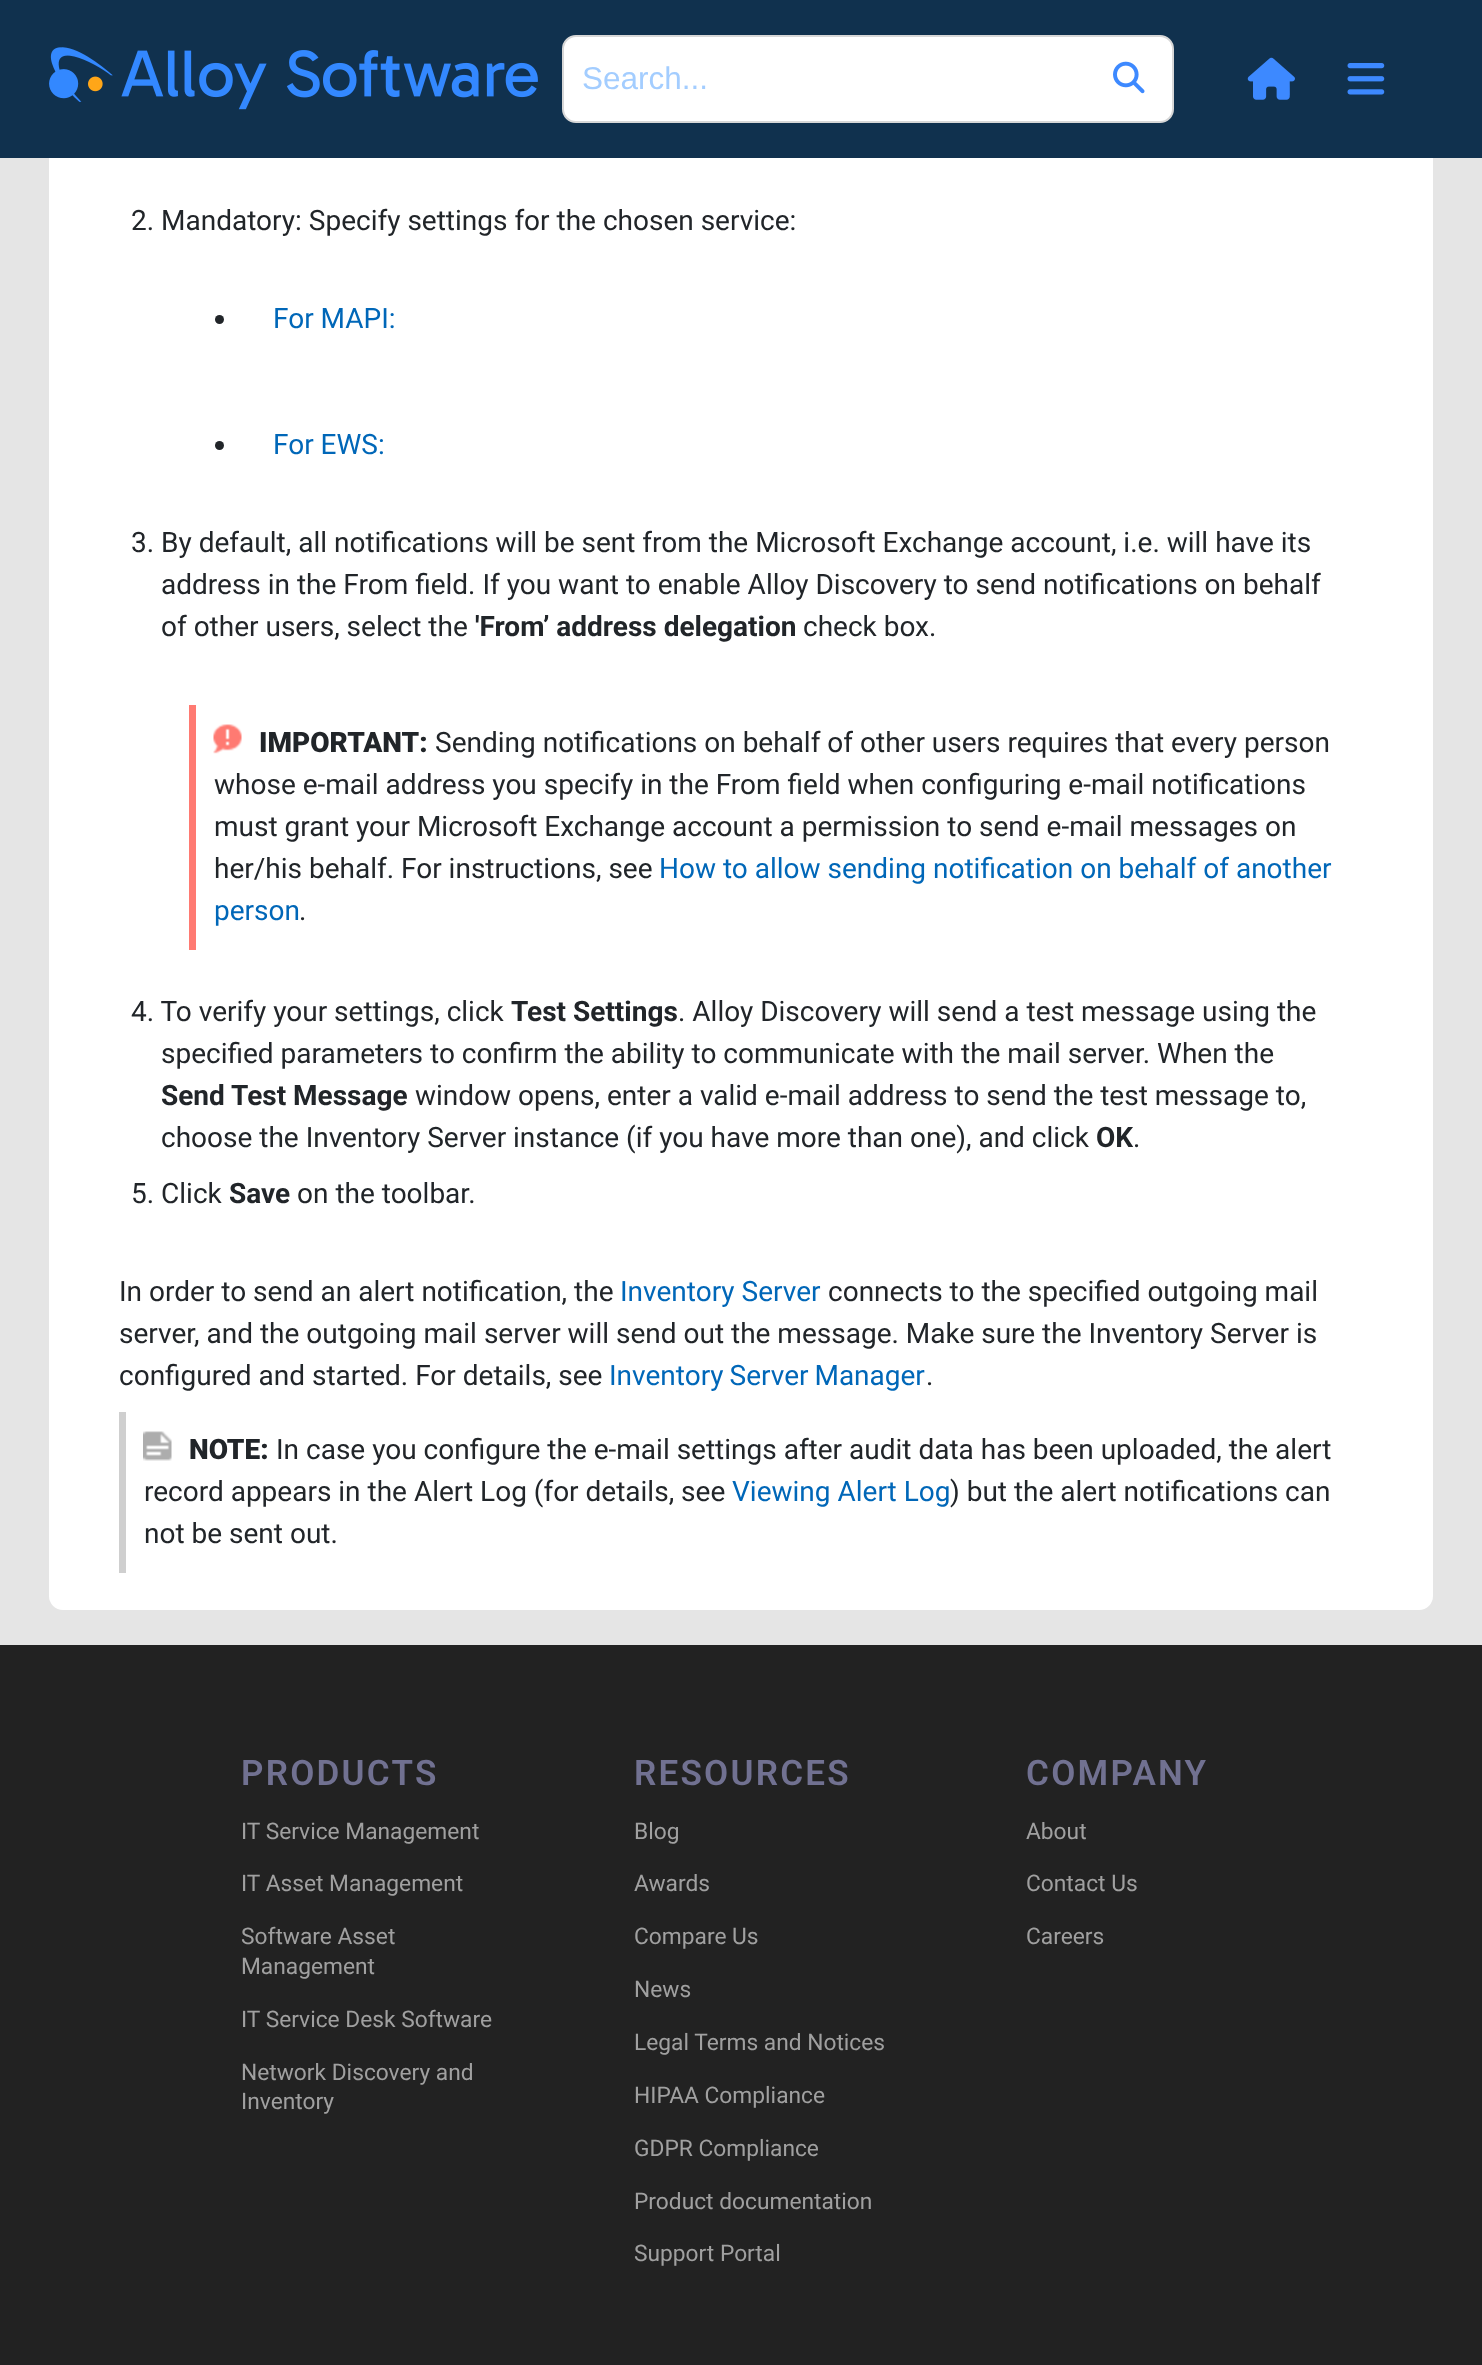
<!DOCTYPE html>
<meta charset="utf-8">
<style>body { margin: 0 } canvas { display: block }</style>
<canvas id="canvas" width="1482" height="2365"></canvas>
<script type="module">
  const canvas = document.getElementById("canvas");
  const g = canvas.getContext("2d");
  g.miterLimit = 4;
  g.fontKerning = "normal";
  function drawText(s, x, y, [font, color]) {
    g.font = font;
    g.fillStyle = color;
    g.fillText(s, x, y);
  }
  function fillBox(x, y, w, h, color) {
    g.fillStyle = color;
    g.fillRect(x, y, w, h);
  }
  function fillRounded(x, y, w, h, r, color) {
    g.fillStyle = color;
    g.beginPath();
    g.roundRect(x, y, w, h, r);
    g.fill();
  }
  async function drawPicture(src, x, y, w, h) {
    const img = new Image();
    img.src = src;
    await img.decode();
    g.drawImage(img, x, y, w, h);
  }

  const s1 = ["31.5px Liberation Sans", "#A3CDFF"];
  const s2 = ["28px Roboto", "#212529"];
  const s3 = ["28px Roboto", "#0067B8"];
  const s4 = ["bold 28px Roboto", "#212529"];
  const s5 = ["900 28px Roboto", "#212529"];
  const s6 = ["600 35px Roboto", "#717191"];
  const s7 = ["22.75px Roboto", "#A0A0A0"];

  fillBox(0, 0, 1482, 2365, "#E5E5E5");
  fillRounded(49, -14, 1384, 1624, 14, "#FFFFFF");
  fillBox(0, 0, 1482, 158, "#10314E");
  await drawPicture("pic1.png", 49, 47, 489, 63);
  g.fillStyle = "#FFFFFF";
  g.beginPath();
  g.roundRect(563, 36, 610, 86, 13);
  g.fill();
  g.strokeStyle = "#D7D7D7";
  g.lineWidth = 2;
  g.stroke();
  drawText("Search...", 582, 89, s1);
  await drawPicture("pic2.png", 1113, 61, 32, 33);
  await drawPicture("pic3.png", 1247, 57, 48, 43);
  await drawPicture("pic4.png", 1347, 63, 38, 32);
  drawText("2. Mandatory: Specify settings for the chosen service:", 131, 230, s2);
  g.beginPath();
  g.arc(219.5, 319.5, 4.5, 0, Math.PI * 2);
  g.fill();
  drawText("For MAPI:", 273, 328, s3);
  g.fillStyle = "#212529";
  g.beginPath();
  g.arc(219.5, 445.5, 4.5, 0, Math.PI * 2);
  g.fill();
  drawText("For EWS:", 273, 454, s3);
  drawText("3. By default, all notifications will be sent from the Microsoft Exchange account, i.e. will have its", 131, 552, s2);
  drawText("address in the From field. If you want to enable Alloy Discovery to send notifications on behalf", 161, 594, s2);
  drawText("of other users, select the", 161, 636, s2);
  drawText("'From’ address delegation", 475, 636, s4);
  drawText("check box.", 803, 636, s2);
  fillBox(189, 705, 7, 245, "#FF7A72");
  await drawPicture("pic5.png", 213, 724, 29, 30);
  drawText("IMPORTANT:", 259, 752, s5);
  drawText("Sending notifications on behalf of other users requires that every person", 435, 752, s2);
  drawText("whose e-mail address you specify in the From field when configuring e-mail notifications", 214, 794, s2);
  drawText("must grant your Microsoft Exchange account a permission to send e-mail messages on", 214, 836, s2);
  drawText("her/his behalf. For instructions, see", 214, 878, s2);
  drawText("How to allow sending notification on behalf of another", 659, 878, s3);
  drawText("person", 214, 920, s3);
  drawText(".", 299, 920, s2);
  drawText("4. To verify your settings, click", 131, 1021, s2);
  drawText("Test Settings", 511, 1021, s4);
  drawText(". Alloy Discovery will send a test message using the", 678, 1021, s2);
  drawText("specified parameters to confirm the ability to communicate with the mail server. When the", 161, 1063, s2);
  drawText("Send Test Message", 161, 1105, s4);
  drawText("window opens, enter a valid e-mail address to send the test message to,", 415, 1105, s2);
  drawText("choose the Inventory Server instance (if you have more than one), and click", 161, 1147, s2);
  drawText("OK", 1096, 1147, s4);
  drawText(".", 1133, 1147, s2);
  drawText("5. Click", 131, 1203, s2);
  drawText("Save", 229, 1203, s4);
  drawText("on the toolbar.", 297, 1203, s2);
  drawText("In order to send an alert notification, the", 119, 1301, s2);
  drawText("Inventory Server", 620, 1301, s3);
  drawText("connects to the specified outgoing mail", 828, 1301, s2);
  drawText("server, and the outgoing mail server will send out the message. Make sure the Inventory Server is", 119, 1343, s2);
  drawText("configured and started. For details, see", 119, 1385, s2);
  g.wordSpacing = "-1px";
  drawText("Inventory Server Manager", 609, 1385, s3);
  g.wordSpacing = "0px";
  drawText(".", 926, 1385, s2);
  fillBox(119, 1412, 7, 161, "#CFCFCF");
  await drawPicture("pic6.png", 143, 1431, 29, 30);
  drawText("NOTE:", 189, 1459, s5);
  drawText("In case you configure the e-mail settings after audit data has been uploaded, the alert", 276, 1459, s2);
  drawText("record appears in the Alert Log (for details, see", 144, 1501, s2);
  drawText("Viewing Alert Log", 732, 1501, s3);
  drawText(") but the alert notifications can", 950, 1501, s2);
  drawText("not be sent out.", 144, 1543, s2);
  fillBox(0, 1645, 1482, 720, "#222222");
  g.letterSpacing = "2.25px";
  drawText("PRODUCTS", 241, 1785, s6);
  g.letterSpacing = "0px";
  drawText("IT Service Management", 241, 1839, s7);
  drawText("IT Asset Management", 241, 1891, s7);
  drawText("Software Asset", 241, 1944, s7);
  drawText("Management", 241, 1974, s7);
  drawText("IT Service Desk Software", 241, 2027, s7);
  drawText("Network Discovery and", 241, 2080, s7);
  drawText("Inventory", 241, 2109, s7);
  g.letterSpacing = "2.25px";
  drawText("RESOURCES", 634, 1785, s6);
  g.letterSpacing = "0px";
  drawText("Blog", 634, 1839, s7);
  drawText("Awards", 634, 1891, s7);
  drawText("Compare Us", 634, 1944, s7);
  drawText("News", 634, 1997, s7);
  drawText("Legal Terms and Notices", 634, 2050, s7);
  drawText("HIPAA Compliance", 634, 2103, s7);
  drawText("GDPR Compliance", 634, 2156, s7);
  drawText("Product documentation", 634, 2209, s7);
  drawText("Support Portal", 634, 2261, s7);
  g.letterSpacing = "2.25px";
  drawText("COMPANY", 1026, 1785, s6);
  g.letterSpacing = "0px";
  drawText("About", 1026, 1839, s7);
  drawText("Contact Us", 1026, 1891, s7);
  drawText("Careers", 1026, 1944, s7);
</script>
